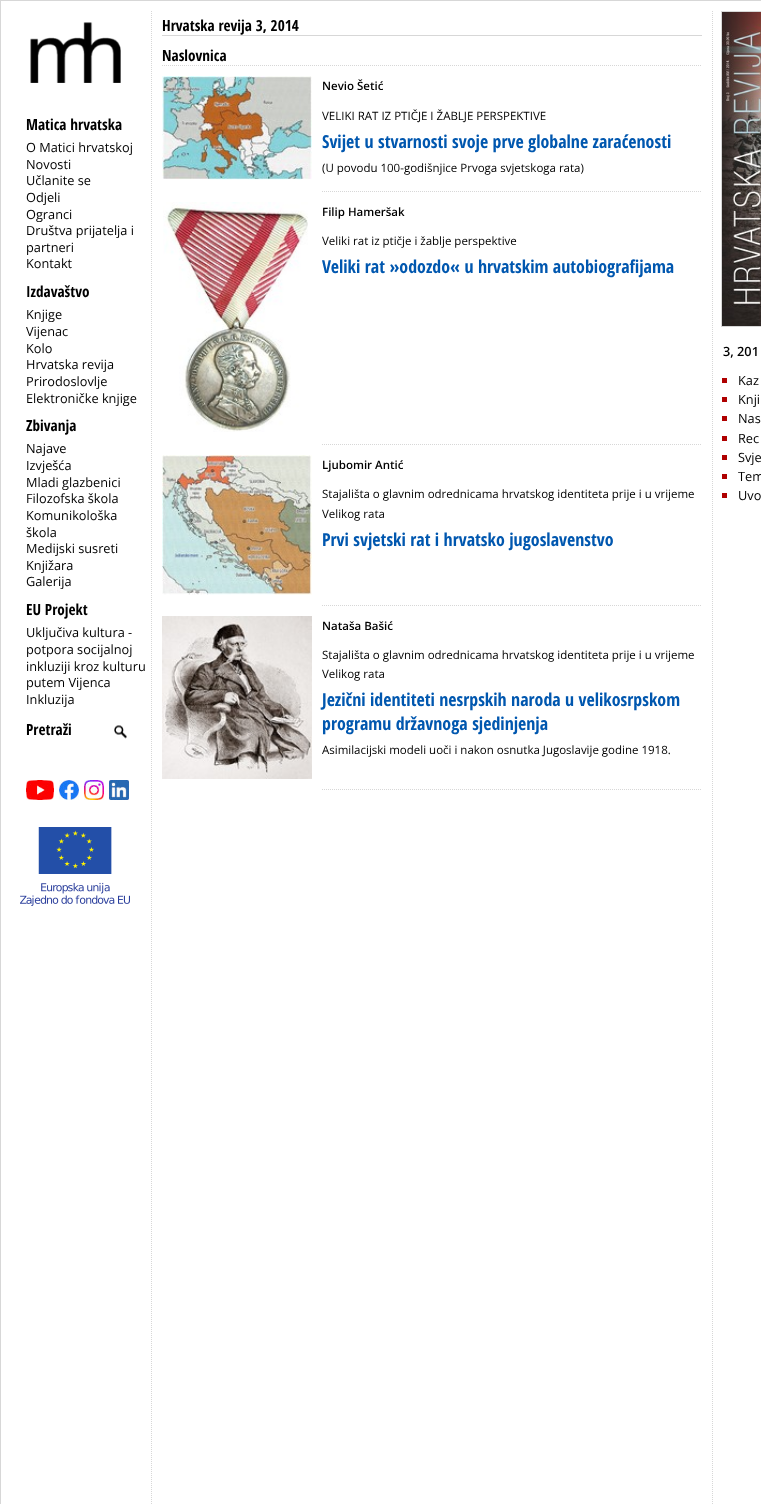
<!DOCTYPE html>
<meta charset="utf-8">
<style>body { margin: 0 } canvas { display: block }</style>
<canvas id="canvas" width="761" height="1504"></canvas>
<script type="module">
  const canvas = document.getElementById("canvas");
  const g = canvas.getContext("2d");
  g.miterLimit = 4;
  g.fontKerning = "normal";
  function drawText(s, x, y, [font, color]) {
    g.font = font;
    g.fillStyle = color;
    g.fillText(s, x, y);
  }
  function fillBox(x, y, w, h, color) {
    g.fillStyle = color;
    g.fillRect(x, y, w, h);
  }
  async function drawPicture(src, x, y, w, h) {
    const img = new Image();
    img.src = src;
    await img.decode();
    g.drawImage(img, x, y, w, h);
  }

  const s1 = ["bold 15.25px Open Sans Condensed", "#000000"];
  const s2 = ["12.75px Open Sans", "#000000"];
  const s3 = ["600 11.5px Open Sans", "#000000"];
  const s4 = ["11.5px Open Sans", "#000000"];
  const s5 = ["bold 17.9px Open Sans Condensed", "#0057AF"];
  const s6 = ["600 12.75px Open Sans", "#000000"];

  fillBox(0, 0, 761, 1504, "#FFFFFF");
  g.strokeStyle = "#D7D7D7";
  g.strokeRect(0.5, 0.5, 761, 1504);
  await drawPicture("pic1.png", 30, 22, 91, 61);
  drawText("Matica hrvatska", 26, 130, s1);
  drawText("O Matici hrvatskoj", 26, 152, s2);
  drawText("Novosti", 26, 169, s2);
  drawText("Učlanite se", 26, 185, s2);
  drawText("Odjeli", 26, 202, s2);
  drawText("Ogranci", 26, 219, s2);
  drawText("Društva prijatelja i", 26, 235, s2);
  drawText("partneri", 26, 252, s2);
  drawText("Kontakt", 26, 268, s2);
  drawText("Izdavaštvo", 26, 297, s1);
  drawText("Knjige", 26, 319, s2);
  drawText("Vijenac", 26, 336, s2);
  drawText("Kolo", 26, 353, s2);
  drawText("Hrvatska revija", 26, 369, s2);
  drawText("Prirodoslovlje", 26, 386, s2);
  drawText("Elektroničke knjige", 26, 403, s2);
  drawText("Zbivanja", 26, 431, s1);
  drawText("Najave", 26, 453, s2);
  drawText("Izvješća", 26, 470, s2);
  drawText("Mladi glazbenici", 26, 487, s2);
  drawText("Filozofska škola", 26, 503, s2);
  drawText("Komunikološka", 26, 520, s2);
  drawText("škola", 26, 537, s2);
  drawText("Medijski susreti", 26, 553, s2);
  drawText("Knjižara", 26, 570, s2);
  drawText("Galerija", 26, 586, s2);
  drawText("EU Projekt", 26, 615, s1);
  drawText("Uključiva kultura -", 26, 637, s2);
  drawText("potpora socijalnoj", 26, 654, s2);
  drawText("inkluziji kroz kulturu", 26, 671, s2);
  drawText("putem Vijenca", 26, 687, s2);
  drawText("Inkluzija", 26, 704, s2);
  drawText("Pretraži", 26, 735, s1);
  await drawPicture("pic2.png", 114, 725, 13, 14);
  await drawPicture("pic3.png", 26, 780, 28, 20);
  await drawPicture("pic4.png", 59, 780, 20, 20);
  await drawPicture("pic5.png", 84, 780, 20, 20);
  await drawPicture("pic6.png", 109, 780, 20, 20);
  await drawPicture("pic7.png", 20, 827, 110, 79);
  g.beginPath();
  g.moveTo(712.5, 11);
  g.lineTo(712.5, 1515);
  g.setLineDash([1, 1]);
  g.stroke();
  g.beginPath();
  g.moveTo(151.5, 11);
  g.lineTo(151.5, 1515);
  g.stroke();
  fillBox(162, 35, 540, 1, "#D7D7D7");
  drawText("Hrvatska revija 3, 2014", 162, 31, s1);
  g.beginPath();
  g.moveTo(162, 65.5);
  g.lineTo(702, 65.5);
  g.stroke();
  drawText("Naslovnica", 162, 61, s1);
  g.beginPath();
  g.moveTo(322, 191.5);
  g.lineTo(702, 191.5);
  g.stroke();
  await drawPicture("pic8.png", 162, 76, 150, 104);
  drawText("Nevio Šetić", 322, 90, s3);
  drawText("VELIKI RAT IZ PTIČJE I ŽABLJE PERSPEKTIVE", 322, 120, s4);
  drawText("Svijet u stvarnosti svoje prve globalne zaraćenosti", 322, 148, s5);
  drawText("(U povodu 100-godišnjice Prvoga svjetskoga rata)", 322, 172, s4);
  g.beginPath();
  g.moveTo(322, 444.5);
  g.lineTo(702, 444.5);
  g.stroke();
  await drawPicture("pic9.png", 163, 202, 145, 230);
  drawText("Filip Hameršak", 322, 216, s3);
  drawText("Veliki rat iz ptičje i žablje perspektive", 322, 245, s4);
  drawText("Veliki rat »odozdo« u hrvatskim autobiografijama", 322, 273, s5);
  g.beginPath();
  g.moveTo(322, 605.5);
  g.lineTo(702, 605.5);
  g.stroke();
  await drawPicture("pic10.png", 162, 455, 150, 140);
  drawText("Ljubomir Antić", 322, 469, s3);
  drawText("Stajališta o glavnim odrednicama hrvatskog identiteta prije i u vrijeme", 322, 498, s4);
  drawText("Velikog rata", 322, 518, s4);
  drawText("Prvi svjetski rat i hrvatsko jugoslavenstvo", 322, 546, s5);
  g.beginPath();
  g.moveTo(322, 789.5);
  g.lineTo(702, 789.5);
  g.stroke();
  await drawPicture("pic11.png", 162, 616, 150, 163);
  drawText("Nataša Bašić", 322, 630, s3);
  drawText("Stajališta o glavnim odrednicama hrvatskog identiteta prije i u vrijeme", 322, 659, s4);
  drawText("Velikog rata", 322, 678, s4);
  drawText("Jezični identiteti nesrpskih naroda u velikosrpskom", 322, 706, s5);
  drawText("programu državnoga sjedinjenja", 322, 730, s5);
  drawText("Asimilacijski modeli uoči i nakon osnutka Jugoslavije godine 1918.", 322, 754, s4);
  g.setLineDash([]);
  g.strokeRect(721.5, 11.5, 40, 315);
  await drawPicture("pic12.png", 722, 12, 39, 314);
  drawText("3, 201", 723, 356, s6);
  fillBox(722, 378, 5, 5, "#AF0000");
  drawText("Kaz", 738, 385, s2);
  fillBox(722, 397, 5, 5, "#AF0000");
  drawText("Knji", 738, 404, s2);
  fillBox(722, 416, 5, 5, "#AF0000");
  drawText("Nas", 738, 423, s2);
  fillBox(722, 436, 5, 5, "#AF0000");
  drawText("Rec", 738, 443, s2);
  fillBox(722, 455, 5, 5, "#AF0000");
  drawText("Svje", 738, 462, s2);
  fillBox(722, 474, 5, 5, "#AF0000");
  drawText("Tem", 738, 481, s2);
  fillBox(722, 493, 5, 5, "#AF0000");
  drawText("Uvo", 738, 500, s2);
</script>
